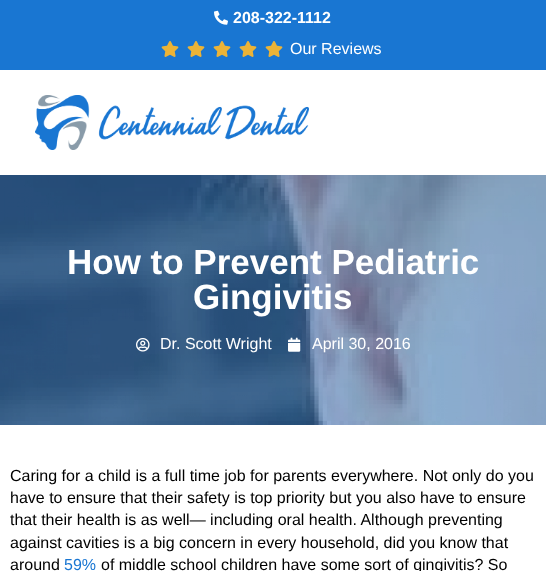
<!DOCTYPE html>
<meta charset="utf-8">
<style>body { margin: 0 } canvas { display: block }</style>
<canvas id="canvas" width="546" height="571"></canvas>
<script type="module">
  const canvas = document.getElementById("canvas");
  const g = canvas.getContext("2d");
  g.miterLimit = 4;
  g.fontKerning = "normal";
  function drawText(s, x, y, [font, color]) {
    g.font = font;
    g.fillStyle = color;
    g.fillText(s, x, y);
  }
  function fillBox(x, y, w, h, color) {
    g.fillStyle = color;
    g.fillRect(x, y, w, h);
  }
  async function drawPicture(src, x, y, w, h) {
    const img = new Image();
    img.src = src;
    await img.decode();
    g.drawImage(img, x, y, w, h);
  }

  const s1 = ["bold 16px Liberation Sans", "#FFFFFF"];
  const s2 = ["16px Liberation Sans", "#FFFFFF"];
  const s3 = ["bold 35px Liberation Sans", "#FFFFFF"];
  const s4 = ["16px Liberation Sans", "#000000"];
  const s5 = ["16px Liberation Sans", "#1976D2"];

  fillBox(0, 0, 546, 571, "#FFFFFF");
  fillBox(0, 0, 546, 70, "#1976D2");
  await drawPicture("pic1.png", 214, 10, 14, 15);
  drawText("208-322-1112", 233, 23, s1);
  await drawPicture("pic2.png", 161, 41, 18, 16);
  await drawPicture("pic2.png", 187, 41, 18, 16);
  await drawPicture("pic2.png", 213, 41, 18, 16);
  await drawPicture("pic2.png", 239, 41, 18, 16);
  await drawPicture("pic2.png", 265, 41, 18, 16);
  drawText("Our Reviews", 290, 54, s2);
  await drawPicture("pic3.png", 35, 95, 274, 55);
  await drawPicture("pic4.png", 0, 175, 546, 250);
  drawText("How to Prevent Pediatric", 67, 274, s3);
  drawText("Gingivitis", 193, 309, s3);
  await drawPicture("pic5.png", 136, 338, 14, 14);
  drawText("Dr. Scott Wright", 160, 349, s2);
  await drawPicture("pic6.png", 288, 337, 13, 15);
  drawText("April 30, 2016", 312, 349, s2);
  drawText("Caring for a child is a full time job for parents everywhere. Not only do you", 10, 481, s4);
  drawText("have to ensure that their safety is top priority but you also have to ensure", 10, 503, s4);
  drawText("that their health is as well— including oral health. Although preventing", 10, 525, s4);
  drawText("against cavities is a big concern in every household, did you know that", 10, 548, s4);
  drawText("around", 10, 570, s4);
  drawText("59%", 64, 570, s5);
  drawText("of middle school children have some sort of gingivitis? So", 101, 570, s4);
</script>
